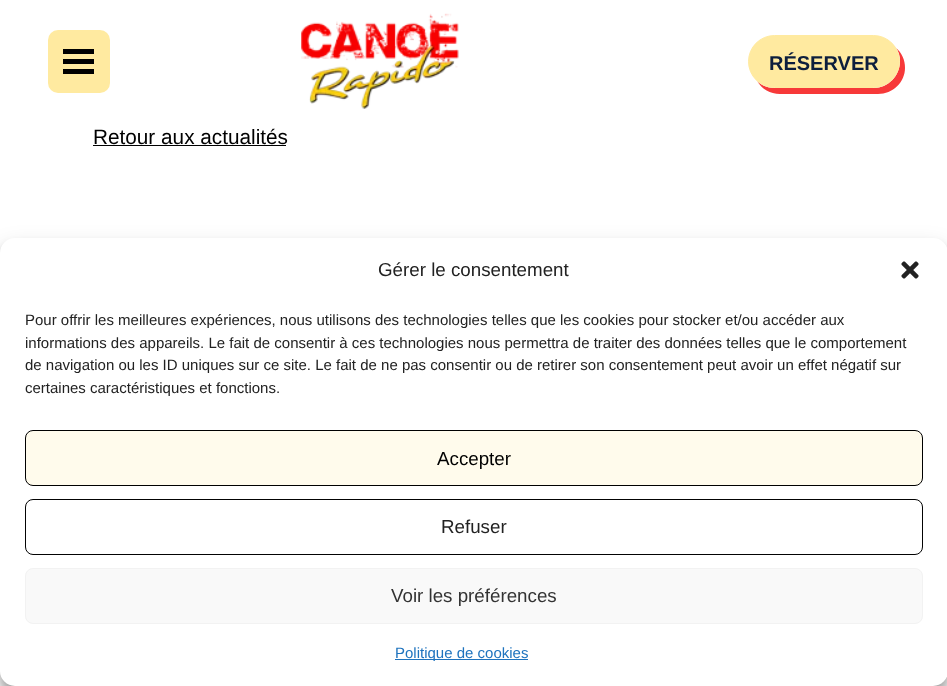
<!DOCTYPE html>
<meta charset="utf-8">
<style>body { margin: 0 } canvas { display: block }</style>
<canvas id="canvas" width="947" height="686"></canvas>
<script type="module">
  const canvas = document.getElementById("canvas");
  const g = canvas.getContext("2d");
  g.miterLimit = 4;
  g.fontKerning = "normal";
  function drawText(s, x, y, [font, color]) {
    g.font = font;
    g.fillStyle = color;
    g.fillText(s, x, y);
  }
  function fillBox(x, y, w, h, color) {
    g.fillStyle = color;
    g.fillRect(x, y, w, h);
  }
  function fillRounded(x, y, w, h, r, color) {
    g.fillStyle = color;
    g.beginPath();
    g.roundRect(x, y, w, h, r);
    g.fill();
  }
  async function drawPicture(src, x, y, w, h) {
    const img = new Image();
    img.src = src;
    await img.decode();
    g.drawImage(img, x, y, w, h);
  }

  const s1 = ["bold 20px Liberation Sans", "#0D1E3D"];
  const s2 = ["20.75px Liberation Sans", "#000000"];
  const s3 = ["18.75px Liberation Sans", "#222222"];
  const s4 = ["15px Liberation Sans", "#222222"];
  const s5 = ["18.75px Liberation Sans", "#000000"];
  const s6 = ["18.75px Liberation Sans", "#333333"];
  const s7 = ["15px Liberation Sans", "#1E73BE"];

  fillBox(0, 0, 947, 686, "#FFFFFF");
  fillRounded(48, 30, 62, 63, 10, "#FFEAA0");
  fillBox(63, 59, 31, 5, "#000000");
  fillBox(63, 49, 31, 5, "#000000");
  fillBox(63, 69, 31, 5, "#000000");
  await drawPicture("pic1.png", 301, 13, 158, 96);
  g.fillStyle = "#F73939";
  g.beginPath();
  g.moveTo(757, 81);
  g.bezierCurveTo(762, 89, 770, 94, 780, 94);
  g.lineTo(878, 94);
  g.bezierCurveTo(893, 94, 905, 82, 905, 68);
  g.bezierCurveTo(905, 60, 902, 53, 896, 48);
  g.bezierCurveTo(899, 52, 900, 56, 900, 61);
  g.bezierCurveTo(900, 76, 888, 88, 874, 88);
  g.lineTo(774, 88);
  g.bezierCurveTo(767, 88, 761, 85, 757, 81);
  g.closePath();
  g.fill();
  g.fillStyle = "#FFEAA0";
  g.beginPath();
  g.roundRect(748.5, 35.5, 151, 52, 26);
  g.fill();
  g.strokeStyle = "#FFEAA0";
  g.stroke();
  drawText("RÉSERVER", 769, 70, s1);
  drawText("Retour aux actualités", 93, 144, s2);
  fillBox(93, 145, 193, 1, "#000000");
  g.fillStyle = "rgba(0, 0, 0, 0.23)";
  g.filter = "blur(4px)";
  g.beginPath();
  g.roundRect(0, 245, 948, 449, 15);
  g.fill();
  g.filter = "none";
  g.fillStyle = "rgba(0, 0, 0, 0.19)";
  g.filter = "blur(12.5px)";
  g.beginPath();
  g.roundRect(0, 250, 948, 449, 15);
  g.fill();
  g.filter = "none";
  fillRounded(0, 238, 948, 448, 15, "#FFFFFF");
  drawText("Gérer le consentement", 378, 276, s3);
  await drawPicture("pic2.png", 901, 261, 18, 18);
  drawText("Pour offrir les meilleures expériences, nous utilisons des technologies telles que les cookies pour stocker et/ou accéder aux", 25, 325, s4);
  drawText("informations des appareils. Le fait de consentir à ces technologies nous permettra de traiter des données telles que le comportement", 25, 348, s4);
  drawText("de navigation ou les ID uniques sur ce site. Le fait de ne pas consentir ou de retirer son consentement peut avoir un effet négatif sur", 25, 370, s4);
  drawText("certaines caractéristiques et fonctions.", 25, 393, s4);
  g.fillStyle = "#FFFBEC";
  g.beginPath();
  g.roundRect(25.5, 430.5, 897, 55, 7.5);
  g.fill();
  g.strokeStyle = "#000000";
  g.stroke();
  drawText("Accepter", 437, 465, s5);
  g.beginPath();
  g.roundRect(25.5, 499.5, 897, 55, 7.5);
  g.strokeStyle = "#030303";
  g.stroke();
  drawText("Refuser", 441, 533, s3);
  g.fillStyle = "#F9F9F9";
  g.beginPath();
  g.roundRect(25.5, 568.5, 897, 55, 7.5);
  g.fill();
  g.strokeStyle = "#F2F2F2";
  g.stroke();
  drawText("Voir les préférences", 391, 602, s6);
  fillBox(395, 659, 133, 1, "#1E73BE");
  drawText("Politique de cookies", 395, 658, s7);
</script>
